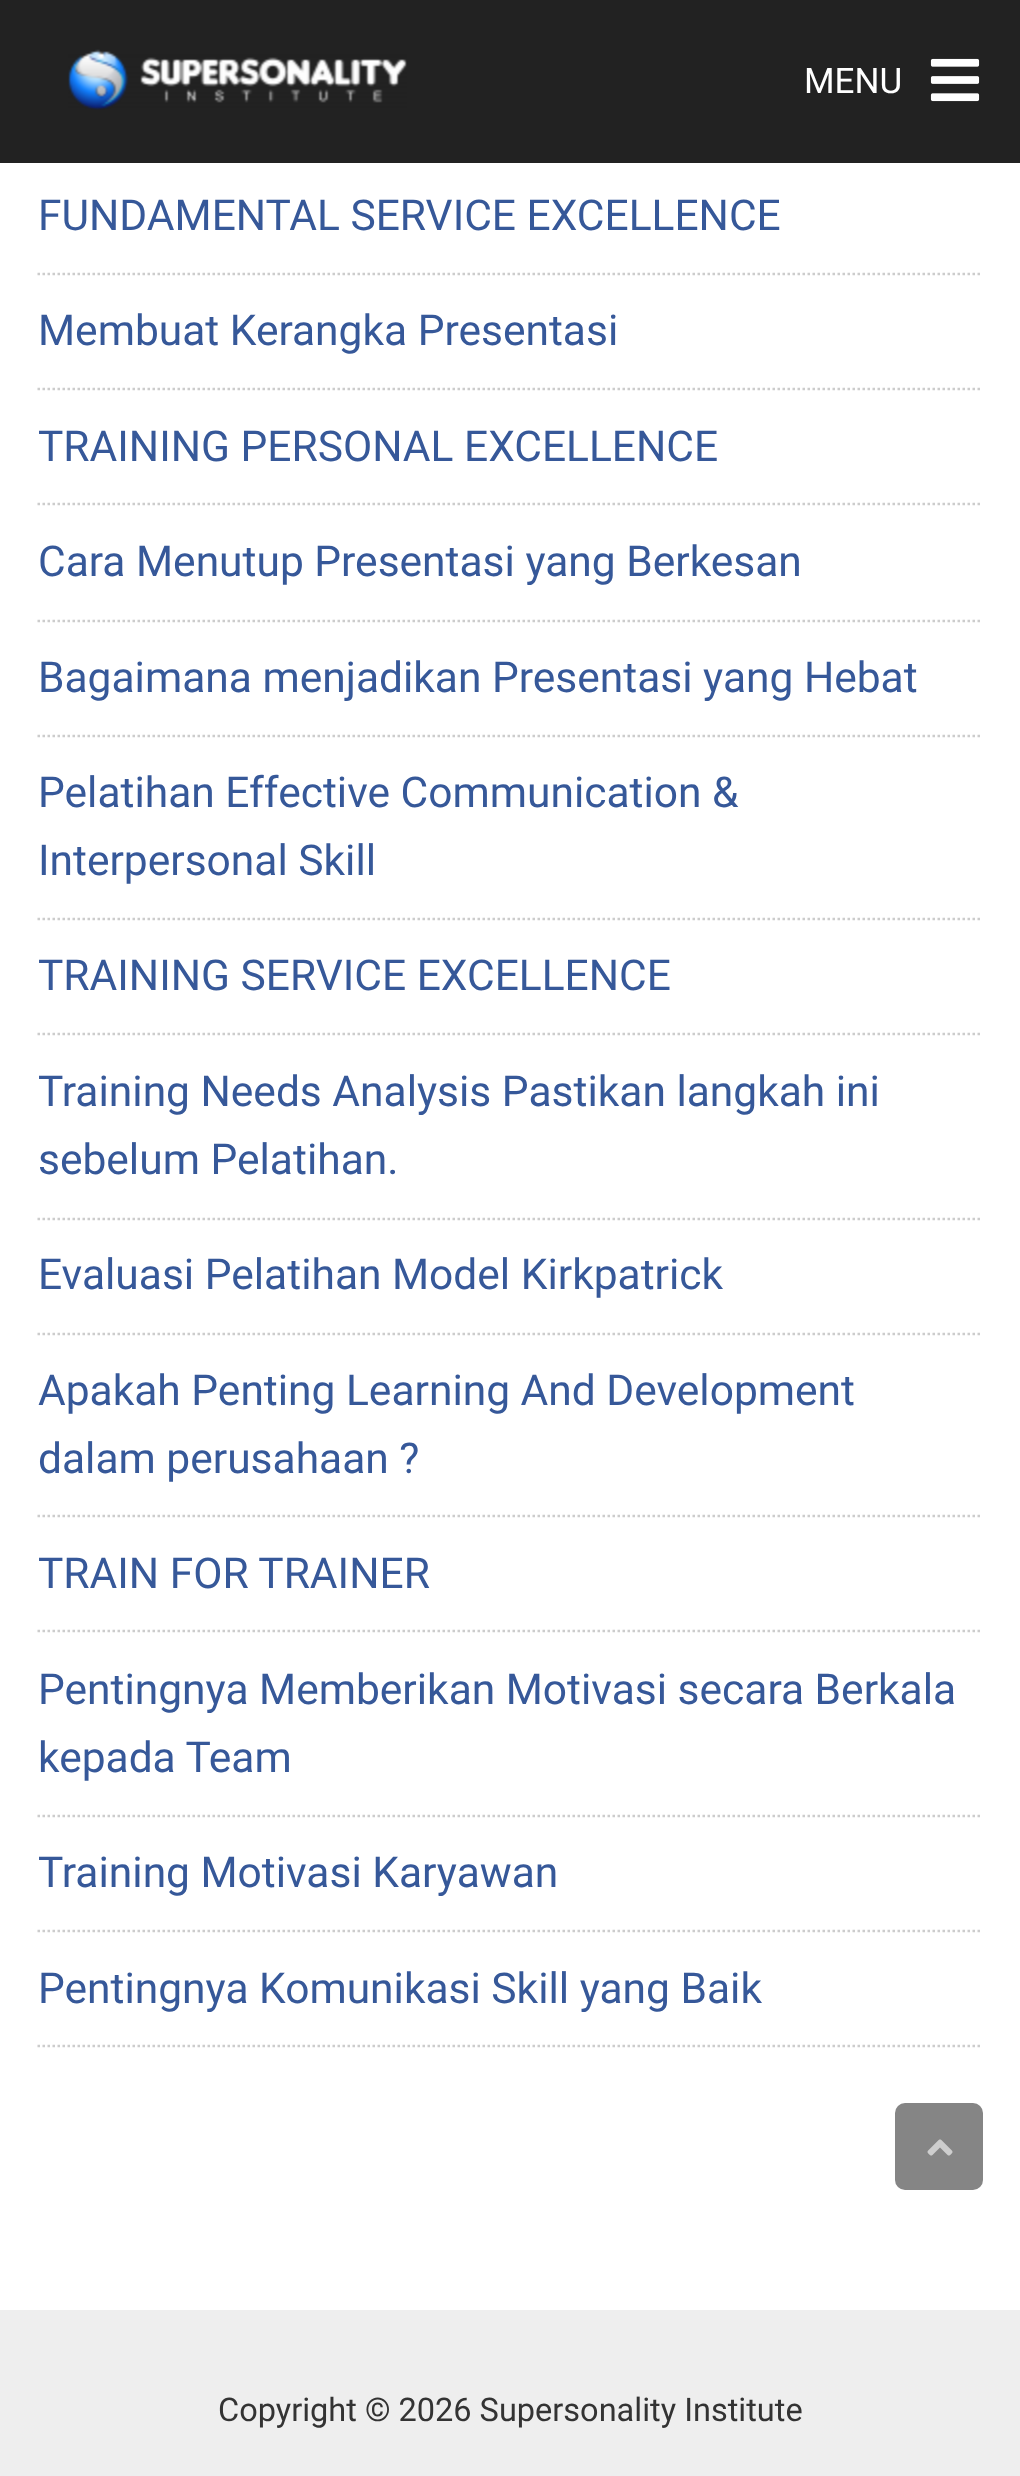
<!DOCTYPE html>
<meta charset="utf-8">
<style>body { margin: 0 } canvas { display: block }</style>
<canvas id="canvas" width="1020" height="2476"></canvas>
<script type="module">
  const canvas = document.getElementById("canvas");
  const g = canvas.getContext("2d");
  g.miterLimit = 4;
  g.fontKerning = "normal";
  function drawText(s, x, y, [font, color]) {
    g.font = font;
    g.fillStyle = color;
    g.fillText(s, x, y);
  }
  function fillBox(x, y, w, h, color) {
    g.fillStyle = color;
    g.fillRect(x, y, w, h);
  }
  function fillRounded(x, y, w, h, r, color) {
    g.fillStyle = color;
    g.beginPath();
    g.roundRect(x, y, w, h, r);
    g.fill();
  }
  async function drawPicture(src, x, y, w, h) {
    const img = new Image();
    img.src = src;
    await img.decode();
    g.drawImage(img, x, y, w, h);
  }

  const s1 = ["35px Roboto", "#FFFFFF"];
  const s2 = ["42.5px Roboto", "#365899"];
  const s3 = ["32.5px Roboto", "#333333"];

  fillBox(0, 0, 1020, 2476, "#EEEEEE");
  fillBox(0, 163, 1020, 2147, "#FFFFFF");
  fillBox(0, 0, 1020, 163, "#222222");
  await drawPicture("pic1.png", 68, 49, 339, 61);
  drawText("MENU", 804, 93, s1);
  await drawPicture("pic2.png", 930, 58, 50, 44);
  g.beginPath();
  g.moveTo(37.5, 274);
  g.lineTo(982.5, 274);
  g.strokeStyle = "#CCCCCC";
  g.lineWidth = 2.5;
  g.setLineDash([2.5, 2.5]);
  g.stroke();
  drawText("FUNDAMENTAL SERVICE EXCELLENCE", 38, 230, s2);
  g.beginPath();
  g.moveTo(37.5, 389);
  g.lineTo(982.5, 389);
  g.stroke();
  drawText("Membuat Kerangka Presentasi", 38, 345, s2);
  g.beginPath();
  g.moveTo(37.5, 504);
  g.lineTo(982.5, 504);
  g.stroke();
  drawText("TRAINING PERSONAL EXCELLENCE", 38, 461, s2);
  g.beginPath();
  g.moveTo(37.5, 621);
  g.lineTo(982.5, 621);
  g.stroke();
  drawText("Cara Menutup Presentasi yang Berkesan", 38, 576, s2);
  g.beginPath();
  g.moveTo(37.5, 736);
  g.lineTo(982.5, 736);
  g.stroke();
  drawText("Bagaimana menjadikan Presentasi yang Hebat", 38, 692, s2);
  g.beginPath();
  g.moveTo(37.5, 919);
  g.lineTo(982.5, 919);
  g.stroke();
  drawText("Pelatihan Effective Communication &", 38, 807, s2);
  drawText("Interpersonal Skill", 38, 875, s2);
  g.beginPath();
  g.moveTo(37.5, 1034);
  g.lineTo(982.5, 1034);
  g.stroke();
  drawText("TRAINING SERVICE EXCELLENCE", 38, 990, s2);
  g.beginPath();
  g.moveTo(37.5, 1219);
  g.lineTo(982.5, 1219);
  g.stroke();
  drawText("Training Needs Analysis Pastikan langkah ini", 38, 1106, s2);
  drawText("sebelum Pelatihan.", 38, 1174, s2);
  g.beginPath();
  g.moveTo(37.5, 1334);
  g.lineTo(982.5, 1334);
  g.stroke();
  drawText("Evaluasi Pelatihan Model Kirkpatrick", 38, 1289, s2);
  g.beginPath();
  g.moveTo(37.5, 1516);
  g.lineTo(982.5, 1516);
  g.stroke();
  drawText("Apakah Penting Learning And Development", 38, 1405, s2);
  drawText("dalam perusahaan ?", 38, 1473, s2);
  g.beginPath();
  g.moveTo(37.5, 1631);
  g.lineTo(982.5, 1631);
  g.stroke();
  drawText("TRAIN FOR TRAINER", 38, 1588, s2);
  g.beginPath();
  g.moveTo(37.5, 1816);
  g.lineTo(982.5, 1816);
  g.stroke();
  drawText("Pentingnya Memberikan Motivasi secara Berkala", 38, 1704, s2);
  drawText("kepada Team", 38, 1772, s2);
  g.beginPath();
  g.moveTo(37.5, 1931);
  g.lineTo(982.5, 1931);
  g.stroke();
  drawText("Training Motivasi Karyawan", 38, 1887, s2);
  g.beginPath();
  g.moveTo(37.5, 2046);
  g.lineTo(982.5, 2046);
  g.stroke();
  drawText("Pentingnya Komunikasi Skill yang Baik", 38, 2003, s2);
  drawText("Copyright © 2026 Supersonality Institute", 218, 2421, s3);
  fillRounded(895, 2103, 88, 87, 10, "#858585");
  await drawPicture("pic3.png", 927, 2139, 26, 17);
</script>
